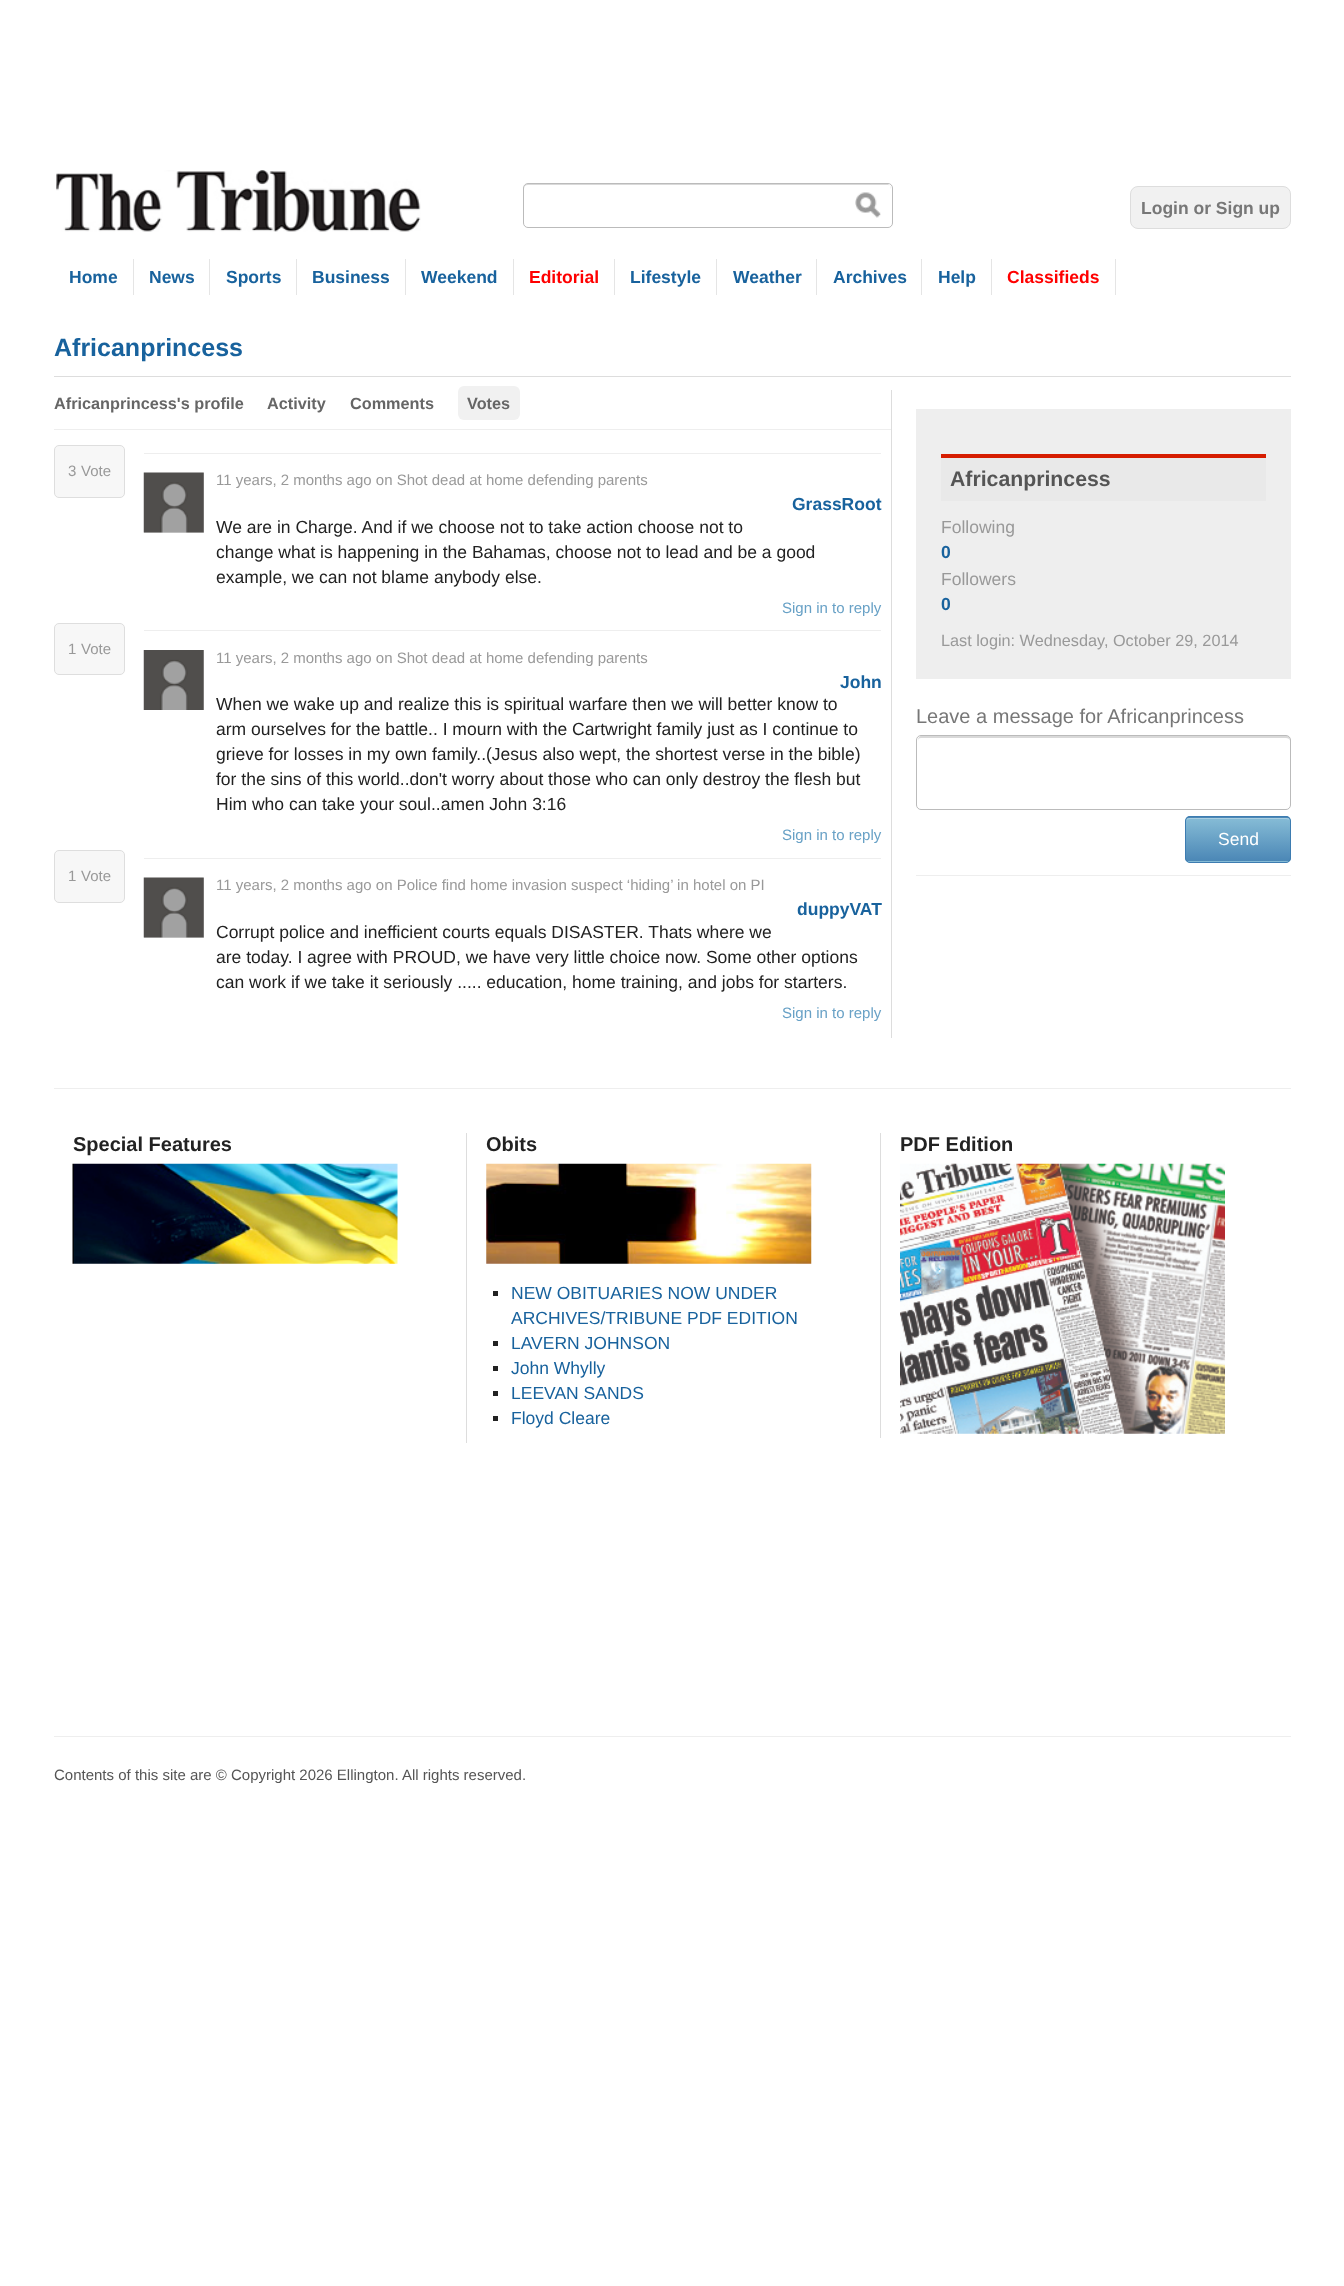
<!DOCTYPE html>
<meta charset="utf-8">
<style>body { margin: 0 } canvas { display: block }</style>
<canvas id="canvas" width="1344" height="2286"></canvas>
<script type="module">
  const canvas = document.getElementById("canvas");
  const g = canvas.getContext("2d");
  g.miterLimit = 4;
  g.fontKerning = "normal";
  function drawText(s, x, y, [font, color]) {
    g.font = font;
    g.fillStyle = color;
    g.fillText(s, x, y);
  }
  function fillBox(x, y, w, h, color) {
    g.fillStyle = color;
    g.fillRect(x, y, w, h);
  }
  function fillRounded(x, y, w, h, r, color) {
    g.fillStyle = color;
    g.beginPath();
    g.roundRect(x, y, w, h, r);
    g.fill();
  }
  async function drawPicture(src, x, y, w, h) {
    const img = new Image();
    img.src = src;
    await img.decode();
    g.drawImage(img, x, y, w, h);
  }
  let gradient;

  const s1 = ["bold 17.5px Liberation Sans", "#777777"];
  const s2 = ["bold 17.5px Liberation Sans", "#18629D"];
  const s3 = ["bold 17.5px Liberation Sans", "#FF0000"];
  const s4 = ["bold 25px Liberation Sans", "#18629D"];
  const s5 = ["bold 16.25px Liberation Sans", "#666666"];
  const s6 = ["15px Liberation Sans", "#999999"];
  const s7 = ["17.5px Liberation Sans", "#222222"];
  const s8 = ["15px Liberation Sans", "#68A1C6"];
  const s9 = ["bold 21.25px Liberation Sans", "#555555"];
  const s10 = ["17.5px Liberation Sans", "#999999"];
  const s11 = ["16.25px Liberation Sans", "#999999"];
  const s12 = ["20px Liberation Sans", "#777777"];
  const s13 = ["17.5px Liberation Sans", "#FFFFFF"];
  const s14 = ["bold 20px Liberation Sans", "#222222"];
  const s15 = ["17.5px Liberation Sans", "#18629D"];
  const s16 = ["15px Liberation Sans", "#555555"];

  fillBox(0, 0, 1344, 2286, "#FFFFFF");
  await drawPicture("pic1.png", 56, 170, 365, 62);
  await drawPicture("pic2.png", 855, 192, 26, 26);
  g.fillStyle = "#D9D9D9";
  g.beginPath();
  g.moveTo(528, 185);
  g.lineTo(888, 185);
  g.bezierCurveTo(890, 185, 891, 187, 891, 189);
  g.lineTo(890, 186);
  g.lineTo(888, 184);
  g.lineTo(528, 184);
  g.bezierCurveTo(525, 184, 524, 186, 524, 189);
  g.bezierCurveTo(524, 187, 525, 185, 528, 185);
  g.closePath();
  g.fill();
  g.beginPath();
  g.roundRect(523.5, 183.5, 369, 44, 4.5);
  g.strokeStyle = "#BBBBBB";
  g.stroke();
  g.fillStyle = "#F1F1F1";
  g.beginPath();
  g.roundRect(1130.5, 186.5, 160, 42, 7.5);
  g.fill();
  g.strokeStyle = "#DDDDDD";
  g.stroke();
  drawText("Login or Sign up", 1141, 214, s1);
  fillBox(133, 259, 1, 36, "#E5E5E5");
  drawText("Home", 69, 283, s2);
  fillBox(209, 259, 1, 36, "#E5E5E5");
  drawText("News", 149, 283, s2);
  fillBox(296, 259, 1, 36, "#E5E5E5");
  drawText("Sports", 226, 283, s2);
  fillBox(405, 259, 1, 36, "#E5E5E5");
  drawText("Business", 312, 283, s2);
  fillBox(513, 259, 1, 36, "#E5E5E5");
  drawText("Weekend", 421, 283, s2);
  fillBox(614, 259, 1, 36, "#E5E5E5");
  drawText("Editorial", 529, 283, s3);
  fillBox(716, 259, 1, 36, "#E5E5E5");
  drawText("Lifestyle", 630, 283, s2);
  fillBox(816, 259, 1, 36, "#E5E5E5");
  drawText("Weather", 733, 283, s2);
  fillBox(921, 259, 1, 36, "#E5E5E5");
  drawText("Archives", 833, 283, s2);
  fillBox(991, 259, 1, 36, "#E5E5E5");
  drawText("Help", 938, 283, s2);
  fillBox(1115, 259, 1, 36, "#E5E5E5");
  drawText("Classifieds", 1007, 283, s3);
  fillBox(54, 376, 1237, 1, "#DDDDDD");
  drawText("Africanprincess", 54, 356, s4);
  fillBox(891, 390, 1, 648, "#DDDDDD");
  fillBox(54, 429, 837, 1, "#EEEEEE");
  drawText("Africanprincess's profile", 54, 409, s5);
  drawText("Activity", 267, 409, s5);
  drawText("Comments", 350, 409, s5);
  fillRounded(458, 386, 62, 34, 6, "#F1F1F1");
  drawText("Votes", 467, 409, s5);
  g.fillStyle = "#F7F7F7";
  g.beginPath();
  g.roundRect(54.5, 445.5, 70, 52, 4.5);
  g.fill();
  g.strokeStyle = "#DEDEDE";
  g.stroke();
  drawText("3", 68, 476, s6);
  drawText("Vote", 81, 476, s6);
  fillBox(144, 453, 737, 1, "#EEEEEE");
  fillBox(144, 473, 60, 60, "#DDDDDD");
  await drawPicture("pic3.png", 143, 472, 61, 61);
  drawText("11 years, 2 months ago on Shot dead at home defending parents", 216, 485, s6);
  drawText("GrassRoot", 792, 510, s2);
  drawText("We are in Charge. And if we choose not to take action choose not to", 216, 533, s7);
  drawText("change what is happening in the Bahamas, choose not to lead and be a good", 216, 558, s7);
  drawText("example, we can not blame anybody else.", 216, 583, s7);
  drawText("Sign in to reply", 782, 613, s8);
  g.fillStyle = "#F7F7F7";
  g.beginPath();
  g.roundRect(54.5, 623.5, 70, 51, 4.5);
  g.fill();
  g.stroke();
  drawText("1", 68, 654, s6);
  drawText("Vote", 81, 654, s6);
  fillBox(144, 630, 737, 1, "#EEEEEE");
  await drawPicture("pic4.png", 143, 650, 61, 60);
  drawText("11 years, 2 months ago on Shot dead at home defending parents", 216, 663, s6);
  drawText("John", 840, 688, s2);
  drawText("When we wake up and realize this is spiritual warfare then we will better know to", 216, 710, s7);
  drawText("arm ourselves for the battle.. I mourn with the Cartwright family just as I continue to", 216, 735, s7);
  drawText("grieve for losses in my own family..(Jesus also wept, the shortest verse in the bible)", 216, 760, s7);
  drawText("for the sins of this world..don't worry about those who can only destroy the flesh but", 216, 785, s7);
  drawText("Him who can take your soul..amen John 3:16", 216, 810, s7);
  drawText("Sign in to reply", 782, 840, s8);
  g.fillStyle = "#F7F7F7";
  g.beginPath();
  g.roundRect(54.5, 850.5, 70, 52, 4.5);
  g.fill();
  g.stroke();
  drawText("1", 68, 881, s6);
  drawText("Vote", 81, 881, s6);
  fillBox(144, 858, 737, 1, "#EEEEEE");
  fillBox(144, 878, 60, 60, "#DDDDDD");
  await drawPicture("pic3.png", 143, 877, 61, 61);
  drawText("11 years, 2 months ago on Police find home invasion suspect ‘hiding’ in hotel on PI", 216, 890, s6);
  drawText("duppyVAT", 797, 915, s2);
  drawText("Corrupt police and inefficient courts equals DISASTER. Thats where we", 216, 938, s7);
  drawText("are today. I agree with PROUD, we have very little choice now. Some other options", 216, 963, s7);
  drawText("can work if we take it seriously ..... education, home training, and jobs for starters.", 216, 988, s7);
  drawText("Sign in to reply", 782, 1018, s8);
  fillBox(916, 409, 375, 270, "#EEEEEE");
  fillBox(941, 458, 325, 43, "#E9E9E9");
  fillBox(941, 454, 325, 4, "#D61D00");
  drawText("Africanprincess", 950, 486, s9);
  drawText("Following", 941, 533, s10);
  drawText("0", 941, 558, s2);
  drawText("Followers", 941, 585, s10);
  drawText("0", 941, 610, s2);
  drawText("Last login: Wednesday, October 29, 2014", 941, 646, s11);
  fillBox(916, 875, 375, 1, "#EEEEEE");
  drawText("Leave a message for Africanprincess", 916, 723, s12);
  g.fillStyle = "#D9D9D9";
  g.beginPath();
  g.moveTo(921, 738);
  g.lineTo(1286, 738);
  g.bezierCurveTo(1288, 738, 1290, 739, 1290, 741);
  g.bezierCurveTo(1290, 738, 1289, 736, 1286, 736);
  g.lineTo(922, 736);
  g.bezierCurveTo(919, 736, 918, 738, 918, 741);
  g.bezierCurveTo(918, 739, 919, 738, 921, 738);
  g.closePath();
  g.fill();
  g.beginPath();
  g.roundRect(916.5, 735.5, 374, 74, 4.5);
  g.strokeStyle = "#BBBBBB";
  g.stroke();
  g.save();
  g.beginPath();
  g.roundRect(1185, 816, 106, 47, 5);
  g.clip();
  gradient = g.createLinearGradient(1238, 774, 1238, 818);
  gradient.addColorStop(0, "#86BCD6");
  gradient.addColorStop(1, "#4B87B6");
  g.fillStyle = gradient;
  g.fillRect(1185, 816, 106, 2);
  gradient = g.createLinearGradient(1238, 818, 1238, 861);
  gradient.addColorStop(0, "#86BCD6");
  gradient.addColorStop(1, "#4B87B6");
  g.fillStyle = gradient;
  g.fillRect(1185, 818, 106, 43);
  gradient = g.createLinearGradient(1238, 861, 1238, 905);
  gradient.addColorStop(0, "#86BCD6");
  gradient.addColorStop(1, "#4B87B6");
  g.fillStyle = gradient;
  g.fillRect(1185, 861, 106, 2);
  g.restore();
  g.fillStyle = "#AACFE2";
  g.beginPath();
  g.moveTo(1190, 819);
  g.lineTo(1286, 819);
  g.bezierCurveTo(1288, 819, 1290, 820, 1290, 822);
  g.bezierCurveTo(1290, 820, 1288, 818, 1286, 818);
  g.lineTo(1190, 818);
  g.bezierCurveTo(1188, 818, 1186, 820, 1186, 822);
  g.bezierCurveTo(1186, 820, 1188, 819, 1190, 819);
  g.closePath();
  g.fill();
  g.beginPath();
  g.roundRect(1185.5, 816.5, 105, 46, 4.5);
  g.strokeStyle = "#3D7CB1";
  g.stroke();
  drawText("Send", 1218, 845, s13);
  fillBox(54, 1088, 1237, 1, "#EEEEEE");
  drawText("Special Features", 73, 1151, s14);
  await drawPicture("pic5.png", 72, 1163, 326, 101);
  fillBox(466, 1133, 1, 310, "#DDDDDD");
  drawText("Obits", 486, 1151, s14);
  await drawPicture("pic6.png", 486, 1163, 326, 101);
  fillBox(493, 1291, 5, 5, "#222222");
  drawText("NEW OBITUARIES NOW UNDER", 511, 1299, s15);
  drawText("ARCHIVES/TRIBUNE PDF EDITION", 511, 1324, s15);
  fillBox(493, 1341, 5, 5, "#222222");
  drawText("LAVERN JOHNSON", 511, 1349, s15);
  fillBox(493, 1366, 5, 5, "#222222");
  drawText("John Whylly", 511, 1374, s15);
  fillBox(493, 1391, 5, 5, "#222222");
  drawText("LEEVAN SANDS", 511, 1399, s15);
  fillBox(493, 1416, 5, 5, "#222222");
  drawText("Floyd Cleare", 511, 1424, s15);
  fillBox(880, 1133, 1, 305, "#DDDDDD");
  drawText("PDF Edition", 900, 1151, s14);
  await drawPicture("pic7.png", 900, 1163, 325, 271);
  fillBox(54, 1736, 1237, 1, "#EEEEEE");
  drawText("Contents of this site are © Copyright 2026 Ellington. All rights reserved.", 54, 1780, s16);
</script>
